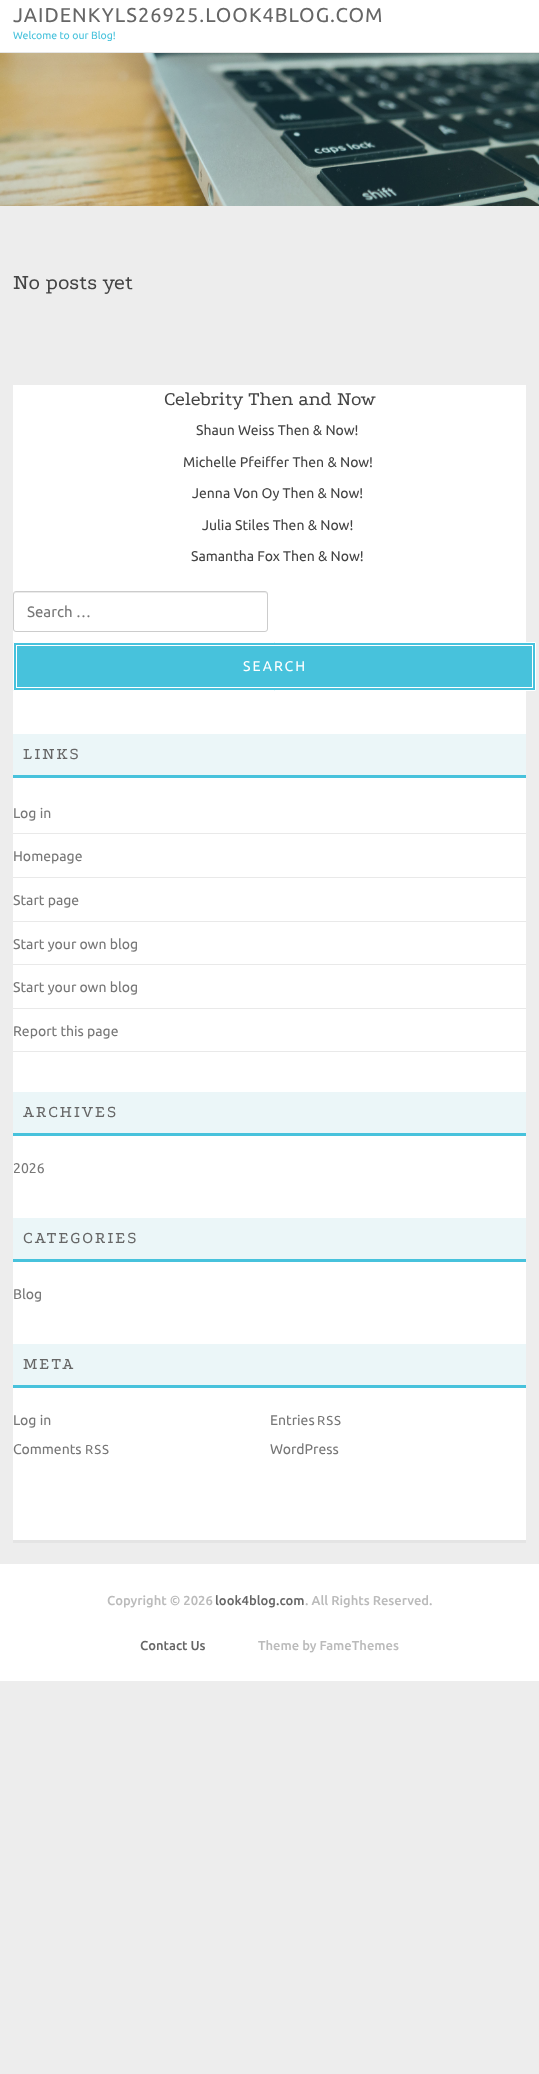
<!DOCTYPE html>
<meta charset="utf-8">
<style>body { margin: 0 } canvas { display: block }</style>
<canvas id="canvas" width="539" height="2074"></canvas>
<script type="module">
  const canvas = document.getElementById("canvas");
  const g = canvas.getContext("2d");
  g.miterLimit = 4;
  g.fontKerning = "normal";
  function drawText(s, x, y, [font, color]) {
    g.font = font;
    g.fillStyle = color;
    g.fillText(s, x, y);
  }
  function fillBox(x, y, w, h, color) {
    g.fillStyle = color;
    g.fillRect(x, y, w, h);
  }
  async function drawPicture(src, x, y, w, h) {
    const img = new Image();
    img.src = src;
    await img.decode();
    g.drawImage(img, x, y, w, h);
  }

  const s1 = ["20px Ubuntu", "#666666"];
  const s2 = ["10.5px Ubuntu", "#47C2DC"];
  const s3 = ["22px Podkova", "#444444"];
  const s4 = ["20px Podkova", "#444444"];
  const s5 = ["14px Ubuntu", "#444444"];
  const s6 = ["15px Ubuntu", "#777777"];
  const s7 = ["14px Ubuntu", "#FFFFFF"];
  const s8 = ["17px Podkova", "#666666"];
  const s9 = ["14px Ubuntu", "#777777"];
  const s10 = ["13px Ubuntu", "#777777"];
  const s11 = ["500 13px Ubuntu", "#BBBBBB"];
  const s12 = ["500 13px Ubuntu", "#666666"];

  fillBox(0, 0, 539, 2074, "#EDEDED");
  fillBox(0, 0, 539, 52, "#FFFFFF");
  fillBox(0, 52, 539, 1, "#E6E6E6");
  g.letterSpacing = "1px";
  drawText("JAIDENKYLS26925.LOOK4BLOG.COM", 13, 22, s1);
  g.letterSpacing = "0px";
  drawText("Welcome to our Blog!", 13, 39, s2);
  await drawPicture("pic1.png", 0, 53, 539, 153);
  drawText("No posts yet", 13, 289, s3);
  fillBox(13, 1540, 513, 3, "#E4E4E4");
  fillBox(13, 385, 513, 1155, "#FFFFFF");
  drawText("Celebrity Then and Now", 164, 405, s4);
  drawText("Shaun Weiss Then & Now!", 196, 435, s5);
  drawText("Michelle Pfeiffer Then & Now!", 183, 467, s5);
  drawText("Jenna Von Oy Then & Now!", 192, 498, s5);
  drawText("Julia Stiles Then & Now!", 202, 530, s5);
  drawText("Samantha Fox Then & Now!", 191, 561, s5);
  g.fillStyle = "#EBEBEB";
  g.beginPath();
  g.moveTo(16, 593);
  g.lineTo(265, 593);
  g.bezierCurveTo(266, 593, 267, 594, 267, 595);
  g.bezierCurveTo(267, 594, 267, 592, 265, 592);
  g.lineTo(16, 592);
  g.bezierCurveTo(14, 592, 14, 594, 14, 595);
  g.bezierCurveTo(14, 594, 15, 593, 16, 593);
  g.closePath();
  g.fill();
  g.beginPath();
  g.roundRect(13.5, 591.5, 254, 40, 2.5);
  g.strokeStyle = "#CCCCCC";
  g.stroke();
  drawText("Search …", 27, 617, s6);
  g.fillStyle = "#47C2DC";
  g.beginPath();
  g.rect(13.5, 642.5, 522, 48);
  g.fill();
  g.strokeStyle = "#FFFFFF";
  g.stroke();
  g.strokeRect(16.5, 645.5, 516, 42);
  g.letterSpacing = "2px";
  drawText("SEARCH", 243, 671, s7);
  fillBox(13, 734, 513, 41, "#EBF6F8");
  fillBox(13, 775, 513, 3, "#47C2DC");
  drawText("LINKS", 23, 759, s8);
  fillBox(13, 833, 513, 1, "#E9E9E9");
  g.letterSpacing = "0px";
  drawText("Log in", 13, 818, s9);
  fillBox(13, 877, 513, 1, "#E9E9E9");
  drawText("Homepage", 13, 861, s9);
  fillBox(13, 921, 513, 1, "#E9E9E9");
  drawText("Start page", 13, 905, s9);
  fillBox(13, 964, 513, 1, "#E9E9E9");
  drawText("Start your own blog", 13, 949, s9);
  fillBox(13, 1008, 513, 1, "#E9E9E9");
  drawText("Start your own blog", 13, 992, s9);
  fillBox(13, 1051, 513, 1, "#E9E9E9");
  drawText("Report this page", 13, 1036, s9);
  fillBox(13, 1092, 513, 41, "#EBF6F8");
  fillBox(13, 1133, 513, 3, "#47C2DC");
  g.letterSpacing = "2px";
  drawText("ARCHIVES", 23, 1117, s8);
  g.letterSpacing = "0px";
  drawText("2026", 13, 1173, s9);
  fillBox(13, 1218, 513, 41, "#EBF6F8");
  fillBox(13, 1259, 513, 3, "#47C2DC");
  g.letterSpacing = "2px";
  drawText("CATEGORIES", 23, 1243, s8);
  g.letterSpacing = "0px";
  drawText("Blog", 13, 1299, s9);
  fillBox(13, 1344, 513, 41, "#EBF6F8");
  fillBox(13, 1385, 513, 3, "#47C2DC");
  g.letterSpacing = "2px";
  drawText("META", 23, 1369, s8);
  g.letterSpacing = "0px";
  drawText("Log in", 13, 1425, s9);
  drawText("Entries", 270, 1425, s9);
  g.letterSpacing = "1px";
  drawText("RSS", 317, 1425, s10);
  g.letterSpacing = "0px";
  drawText("Comments", 13, 1454, s9);
  g.letterSpacing = "1px";
  drawText("RSS", 85, 1454, s10);
  g.letterSpacing = "0px";
  drawText("WordPress", 270, 1454, s9);
  fillBox(0, 1564, 539, 117, "#FFFFFF");
  drawText("Copyright © 2026", 107, 1605, s11);
  drawText("look4blog.com", 215, 1605, s12);
  drawText(". All Rights Reserved.", 305, 1605, s11);
  drawText("Contact Us", 140, 1650, s12);
  drawText("Theme by FameThemes", 258, 1650, s11);
</script>
